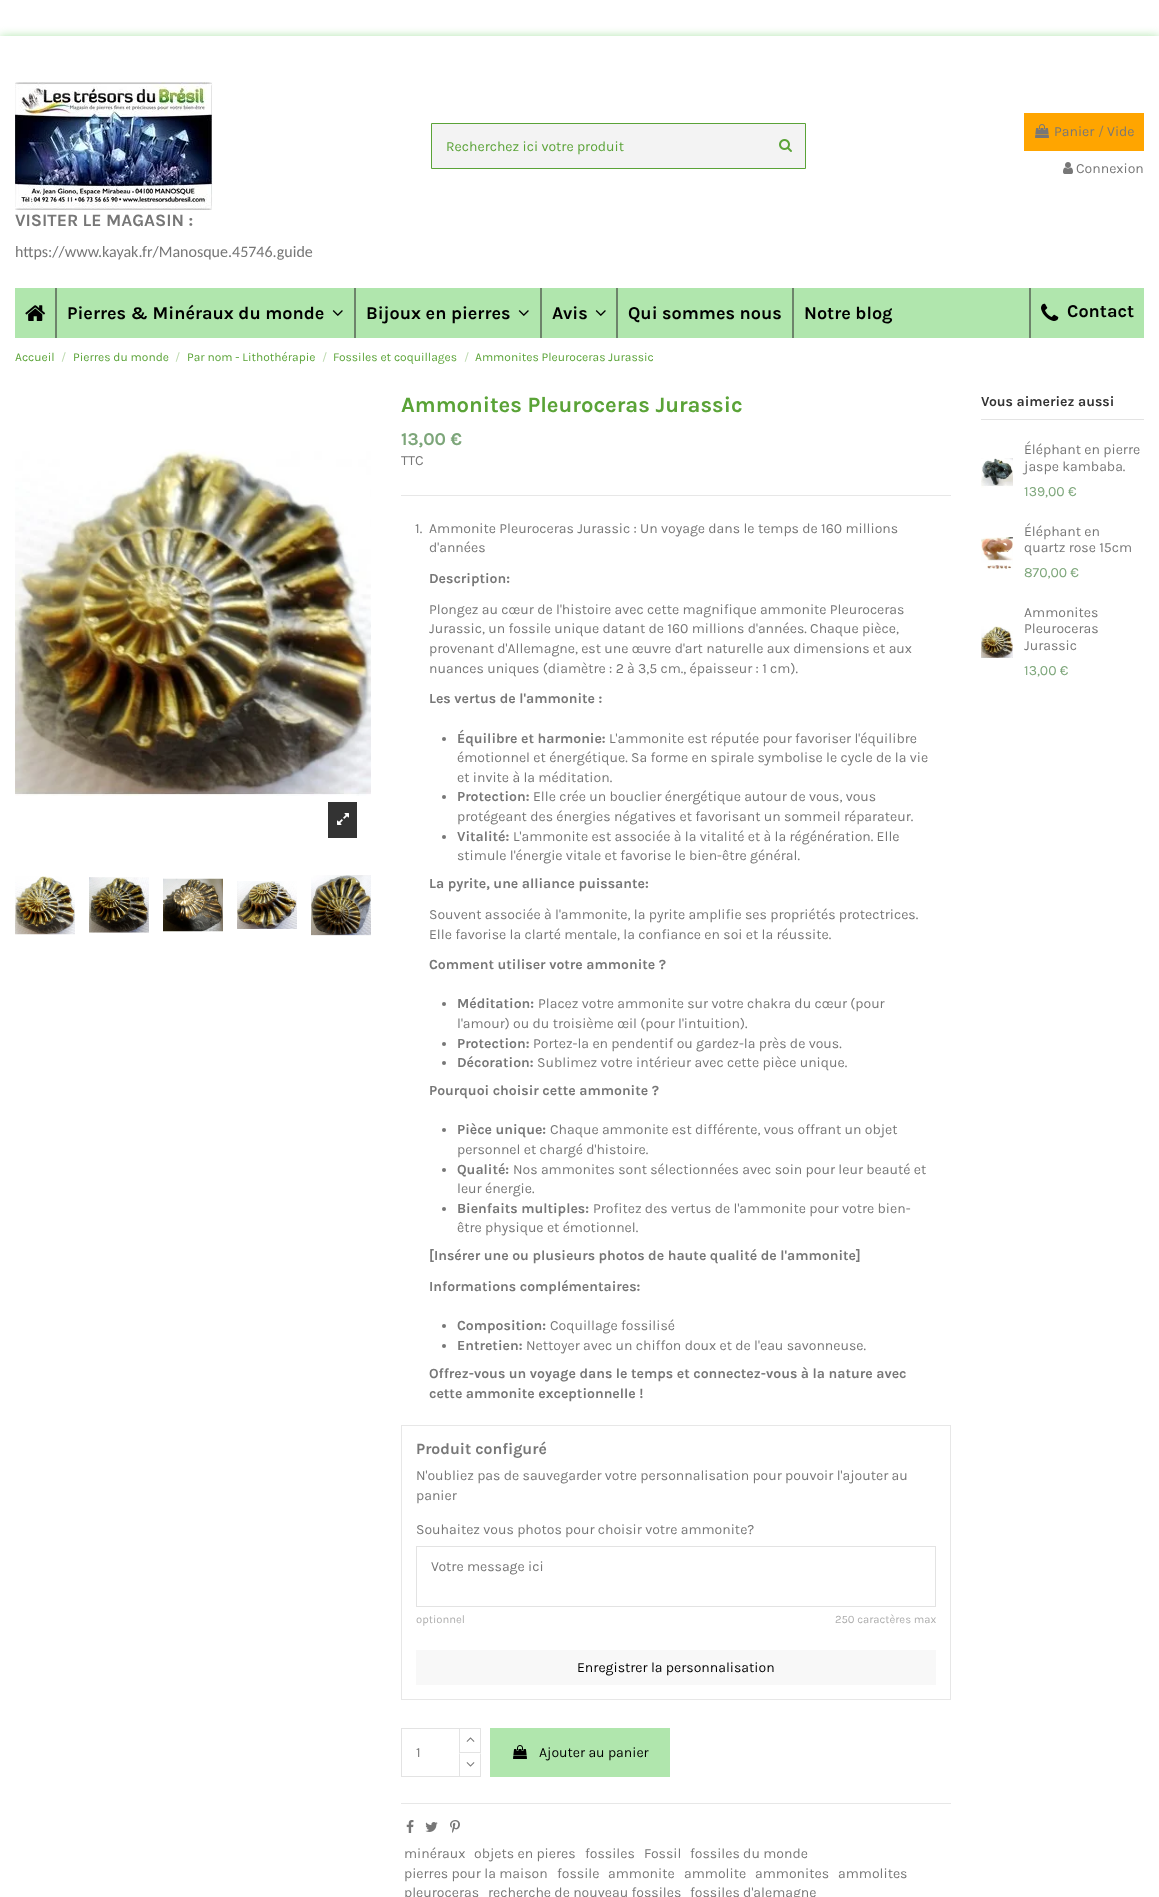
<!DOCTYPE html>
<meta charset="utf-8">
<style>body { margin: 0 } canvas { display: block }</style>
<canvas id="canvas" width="1159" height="1897"></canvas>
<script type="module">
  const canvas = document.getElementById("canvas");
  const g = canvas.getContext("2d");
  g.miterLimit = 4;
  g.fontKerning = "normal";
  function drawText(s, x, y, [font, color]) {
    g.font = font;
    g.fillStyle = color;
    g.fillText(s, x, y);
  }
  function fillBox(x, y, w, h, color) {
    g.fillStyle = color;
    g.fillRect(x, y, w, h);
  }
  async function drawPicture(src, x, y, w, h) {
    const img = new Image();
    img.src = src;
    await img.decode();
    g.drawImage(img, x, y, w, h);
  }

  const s1 = ["14px Karla", "#5AA337"];
  const s2 = ["14px Karla", "#777777"];
  const s3 = ["14px Karla", "#92805F"];
  const s4 = ["bold 17.5px Karla", "#777777"];
  const s5 = ["16px Carlito", "#777777"];
  const s6 = ["bold 18px Karla", "#000000"];
  const s7 = ["12px Karla", "#5AA337"];
  const s8 = ["12px Karla", "#BDDAAF"];
  const s9 = ["bold 22px Karla", "#5AA337"];
  const s10 = ["bold 18px Karla", "#7DA67A"];
  const s11 = ["bold 14px Karla", "#777777"];
  const s12 = ["bold 15.75px Karla", "#777777"];
  const s13 = ["11.25px Karla", "#ADADAD"];
  const s14 = ["14px Karla", "#000000"];
  const s15 = ["bold 14px Karla", "#333333"];
  const s16 = ["14px Karla", "#7DA67A"];

  fillBox(0, 0, 1159, 1897, "#FFFFFF");
  g.save();
  g.beginPath();
  g.rect(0, 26, 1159, 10);
  g.clip();
  g.fillStyle = "#B0E6AD";
  g.filter = "blur(5px)";
  g.beginPath();
  g.rect(0, 36, 1159, 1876);
  g.fill();
  g.filter = "none";
  g.restore();
  await drawPicture("pic1.png", 15, 82, 198, 128);
  g.fillStyle = "#F3F3F3";
  g.beginPath();
  g.rect(431.5, 123.5, 374, 45);
  g.fill();
  g.strokeStyle = "#5AA337";
  g.stroke();
  drawText("Recherchez ici votre produit", 446, 151, s1);
  await drawPicture("pic2.png", 779, 139, 13, 13);
  fillBox(1024, 113, 120, 38, "#FFA500");
  await drawPicture("pic3.png", 1035, 124, 14, 14);
  drawText("Panier", 1054, 136, s2);
  drawText("/", 1098, 136, s3);
  drawText("Vide", 1107, 136, s2);
  await drawPicture("pic4.png", 1063, 162, 10, 12);
  drawText("Connexion", 1076, 173, s2);
  drawText("VISITER LE MAGASIN :", 15, 226, s4);
  drawText("https://www.kayak.fr/Manosque.45746.guide", 15, 257, s5);
  fillBox(15, 288, 1129, 50, "#B0E6AD");
  await drawPicture("pic5.png", 25, 305, 21, 16);
  fillBox(55, 288, 2, 50, "#6D846B");
  drawText("Pierres & Minéraux du monde", 67, 319, s6);
  await drawPicture("pic6.png", 332, 310, 11, 6);
  fillBox(354, 288, 2, 50, "#6D846B");
  drawText("Bijoux en pierres", 366, 319, s6);
  await drawPicture("pic6.png", 518, 310, 11, 6);
  fillBox(540, 288, 2, 50, "#6D846B");
  drawText("Avis", 552, 319, s6);
  await drawPicture("pic6.png", 595, 310, 11, 6);
  fillBox(616, 288, 2, 50, "#6D846B");
  drawText("Qui sommes nous", 628, 319, s6);
  fillBox(792, 288, 2, 50, "#6D846B");
  drawText("Notre blog", 804, 319, s6);
  fillBox(1029, 288, 2, 50, "#6D846B");
  await drawPicture("pic7.png", 1041, 303, 18, 18);
  drawText("Contact", 1067, 317, s6);
  drawText("Accueil", 15, 361, s7);
  drawText("/", 61, 361, s8);
  drawText("Pierres du monde", 73, 361, s7);
  drawText("/", 175, 361, s8);
  drawText("Par nom - Lithothérapie", 187, 361, s7);
  drawText("/", 322, 361, s8);
  drawText("Fossiles et coquillages", 333, 361, s7);
  drawText("/", 464, 361, s8);
  drawText("Ammonites Pleuroceras Jurassic", 475, 361, s7);
  await drawPicture("pic8.png", 15, 449, 356, 347);
  fillBox(328, 802, 29, 36, "#333333");
  await drawPicture("pic9.png", 337, 813, 12, 12);
  await drawPicture("pic10.png", 15, 876, 60, 59);
  await drawPicture("pic11.png", 89, 877, 60, 56);
  await drawPicture("pic12.png", 163, 878, 60, 54);
  await drawPicture("pic13.png", 237, 881, 60, 48);
  await drawPicture("pic14.png", 311, 875, 60, 61);
  fillBox(401, 495, 550, 1, "#E7E7E7");
  drawText("Ammonites Pleuroceras Jurassic", 401, 412, s9);
  drawText("13,00 €", 401, 445, s10);
  drawText("TTC", 401, 465, s2);
  drawText("1.", 415, 533, s2);
  drawText("Ammonite Pleuroceras Jurassic : Un voyage dans le temps de 160 millions", 429, 533, s2);
  drawText("d'années", 429, 552, s2);
  drawText("Description:", 429, 583, s11);
  drawText("Plongez au cœur de l'histoire avec cette magnifique ammonite Pleuroceras", 429, 614, s2);
  drawText("Jurassic, un fossile unique datant de 160 millions d'années. Chaque pièce,", 429, 633, s2);
  drawText("provenant d'Allemagne, est une œuvre d'art naturelle aux dimensions et aux", 429, 653, s2);
  drawText("nuances uniques (diamètre : 2 à 3,5 cm., épaisseur : 1 cm).", 429, 673, s2);
  drawText("Les vertus de l'ammonite :", 429, 703, s11);
  g.beginPath();
  g.arc(444, 739, 2, 0, Math.PI * 2);
  g.fill();
  drawText("Équilibre et harmonie:", 457, 743, s11);
  drawText("L'ammonite est réputée pour favoriser l'équilibre", 609, 743, s2);
  drawText("émotionnel et énergétique. Sa forme en spirale symbolise le cycle de la vie", 457, 762, s2);
  drawText("et invite à la méditation.", 457, 782, s2);
  g.beginPath();
  g.arc(444, 797, 2, 0, Math.PI * 2);
  g.fill();
  drawText("Protection:", 457, 801, s11);
  drawText("Elle crée un bouclier énergétique autour de vous, vous", 533, 801, s2);
  drawText("protégeant des énergies négatives et favorisant un sommeil réparateur.", 457, 821, s2);
  g.beginPath();
  g.arc(444, 837, 2, 0, Math.PI * 2);
  g.fill();
  drawText("Vitalité:", 457, 841, s11);
  drawText("L'ammonite est associée à la vitalité et à la régénération. Elle", 513, 841, s2);
  drawText("stimule l'énergie vitale et favorise le bien-être général.", 457, 860, s2);
  drawText("La pyrite, une alliance puissante:", 429, 888, s11);
  drawText("Souvent associée à l'ammonite, la pyrite amplifie ses propriétés protectrices.", 429, 919, s2);
  drawText("Elle favorise la clarté mentale, la confiance en soi et la réussite.", 429, 939, s2);
  drawText("Comment utiliser votre ammonite ?", 429, 969, s11);
  g.beginPath();
  g.arc(444, 1004, 2, 0, Math.PI * 2);
  g.fill();
  drawText("Méditation:", 457, 1008, s11);
  drawText("Placez votre ammonite sur votre chakra du cœur (pour", 538, 1008, s2);
  drawText("l'amour) ou du troisième œil (pour l'intuition).", 457, 1028, s2);
  g.beginPath();
  g.arc(444, 1044, 2, 0, Math.PI * 2);
  g.fill();
  drawText("Protection:", 457, 1048, s11);
  drawText("Portez-la en pendentif ou gardez-la près de vous.", 533, 1048, s2);
  g.beginPath();
  g.arc(444, 1063, 2, 0, Math.PI * 2);
  g.fill();
  drawText("Décoration:", 457, 1067, s11);
  drawText("Sublimez votre intérieur avec cette pièce unique.", 537, 1067, s2);
  drawText("Pourquoi choisir cette ammonite ?", 429, 1095, s11);
  g.beginPath();
  g.arc(444, 1130, 2, 0, Math.PI * 2);
  g.fill();
  drawText("Pièce unique:", 457, 1134, s11);
  drawText("Chaque ammonite est différente, vous offrant un objet", 550, 1134, s2);
  drawText("personnel et chargé d'histoire.", 457, 1154, s2);
  g.beginPath();
  g.arc(444, 1170, 2, 0, Math.PI * 2);
  g.fill();
  drawText("Qualité:", 457, 1174, s11);
  drawText("Nos ammonites sont sélectionnées avec soin pour leur beauté et", 513, 1174, s2);
  drawText("leur énergie.", 457, 1193, s2);
  g.beginPath();
  g.arc(444, 1209, 2, 0, Math.PI * 2);
  g.fill();
  drawText("Bienfaits multiples:", 457, 1213, s11);
  drawText("Profitez des vertus de l'ammonite pour votre bien-", 593, 1213, s2);
  drawText("être physique et émotionnel.", 457, 1232, s2);
  drawText("[Insérer une ou plusieurs photos de haute qualité de l'ammonite]", 429, 1260, s11);
  drawText("Informations complémentaires:", 429, 1291, s11);
  g.beginPath();
  g.arc(444, 1326, 2, 0, Math.PI * 2);
  g.fill();
  drawText("Composition:", 457, 1330, s11);
  drawText("Coquillage fossilisé", 550, 1330, s2);
  g.beginPath();
  g.arc(444, 1346, 2, 0, Math.PI * 2);
  g.fill();
  drawText("Entretien:", 457, 1350, s11);
  drawText("Nettoyer avec un chiffon doux et de l'eau savonneuse.", 526, 1350, s2);
  drawText("Offrez-vous un voyage dans le temps et connectez-vous à la nature avec", 429, 1378, s11);
  drawText("cette ammonite exceptionnelle !", 429, 1398, s11);
  g.strokeStyle = "#E7E7E7";
  g.strokeRect(401.5, 1425.5, 549, 274);
  drawText("Produit configuré", 416, 1454, s12);
  drawText("N'oubliez pas de sauvegarder votre personnalisation pour pouvoir l'ajouter au", 416, 1480, s2);
  drawText("panier", 416, 1500, s2);
  drawText("Souhaitez vous photos pour choisir votre ammonite?", 416, 1534, s2);
  g.strokeStyle = "#E3E3E3";
  g.strokeRect(416.5, 1546.5, 519, 60);
  drawText("Votre message ici", 431, 1571, s2);
  drawText("optionnel", 416, 1623, s13);
  drawText("250 caractères max", 835, 1623, s13);
  fillBox(416, 1650, 520, 35, "#F8F8F8");
  drawText("Enregistrer la personnalisation", 577, 1672, s14);
  g.strokeRect(401.5, 1728.5, 58, 48);
  drawText("1", 416, 1757, s2);
  g.strokeRect(459.5, 1728.5, 21, 24);
  await drawPicture("pic15.png", 466, 1737, 9, 5);
  fillBox(459, 1753, 1, 23, "#FFFFFF");
  g.fillStyle = "#E3E3E3";
  g.beginPath();
  g.moveTo(481, 1753);
  g.lineTo(481, 1777);
  g.lineTo(480, 1776);
  g.lineTo(480, 1754);
  g.closePath();
  g.fill();
  fillBox(459, 1776, 22, 1, "#E3E3E3");
  g.beginPath();
  g.moveTo(459, 1777);
  g.lineTo(459, 1753);
  g.lineTo(460, 1754);
  g.lineTo(460, 1776);
  g.closePath();
  g.fill();
  await drawPicture("pic16.png", 466, 1762, 9, 5);
  fillBox(490, 1728, 180, 49, "#B0E6AD");
  await drawPicture("pic17.png", 513, 1745, 14, 14);
  drawText("Ajouter au panier", 539, 1757, s14);
  fillBox(401, 1803, 550, 1, "#E7E7E7");
  await drawPicture("pic18.png", 406, 1820, 8, 13);
  await drawPicture("pic19.png", 425, 1822, 13, 10);
  await drawPicture("pic20.png", 450, 1820, 10, 13);
  drawText("minéraux", 404, 1858, s2);
  drawText("objets en pieres", 474, 1858, s2);
  drawText("fossiles", 585, 1858, s2);
  drawText("Fossil", 644, 1858, s2);
  drawText("fossiles du monde", 690, 1858, s2);
  drawText("pierres pour la maison", 404, 1878, s2);
  drawText("fossile", 557, 1878, s2);
  drawText("ammonite", 608, 1878, s2);
  drawText("ammolite", 684, 1878, s2);
  drawText("ammonites", 755, 1878, s2);
  drawText("ammolites", 838, 1878, s2);
  drawText("pleuroceras", 404, 1897, s2);
  drawText("recherche de nouveau fossiles", 488, 1897, s2);
  drawText("fossiles d'alemagne", 690, 1897, s2);
  fillBox(981, 419, 163, 1, "#E3E3E3");
  drawText("Vous aimeriez aussi", 981, 406, s15);
  await drawPicture("pic21.png", 981, 458, 32, 30);
  drawText("Éléphant en pierre", 1024, 454, s2);
  drawText("jaspe kambaba.", 1024, 471, s2);
  drawText("139,00 €", 1024, 496, s16);
  await drawPicture("pic22.png", 981, 537, 32, 32);
  drawText("Éléphant en", 1024, 536, s2);
  drawText("quartz rose 15cm", 1024, 552, s2);
  drawText("870,00 €", 1024, 577, s16);
  await drawPicture("pic23.png", 981, 626, 32, 32);
  drawText("Ammonites", 1024, 617, s2);
  drawText("Pleuroceras", 1024, 633, s2);
  drawText("Jurassic", 1024, 650, s2);
  drawText("13,00 €", 1024, 675, s16);
</script>
